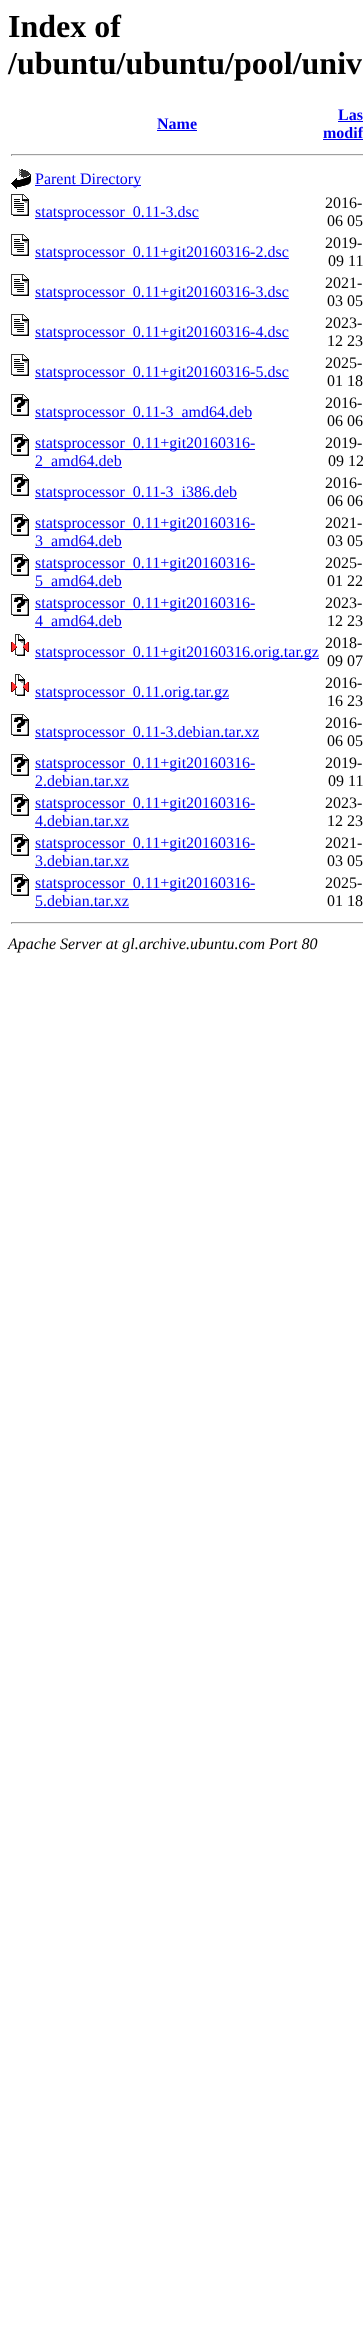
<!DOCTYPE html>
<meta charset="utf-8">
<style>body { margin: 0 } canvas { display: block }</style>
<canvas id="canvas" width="363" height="2328"></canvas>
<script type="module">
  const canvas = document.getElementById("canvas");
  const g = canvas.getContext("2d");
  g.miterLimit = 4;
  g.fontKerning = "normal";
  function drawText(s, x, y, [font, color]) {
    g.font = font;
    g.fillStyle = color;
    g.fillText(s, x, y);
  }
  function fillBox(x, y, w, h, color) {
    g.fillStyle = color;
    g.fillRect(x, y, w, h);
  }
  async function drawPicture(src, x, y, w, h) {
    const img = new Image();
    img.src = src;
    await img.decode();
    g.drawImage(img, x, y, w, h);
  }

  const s1 = ["bold 32px Liberation Serif", "#000000"];
  const s2 = ["bold 16px Liberation Serif", "#0000EE"];
  const s3 = ["16px Liberation Serif", "#0000EE"];
  const s4 = ["16px Liberation Serif", "#000000"];
  const s5 = ["italic 16px Liberation Serif", "#000000"];

  fillBox(0, 0, 363, 2328, "#FFFFFF");
  drawText("Index of", 8, 37, s1);
  drawText("/ubuntu/ubuntu/pool/univ", 8, 74, s1);
  drawText("Name", 157, 129, s2);
  fillBox(157, 130, 40, 1, "#0000EE");
  drawText("Las", 338, 120, s2);
  fillBox(338, 121, 25, 1, "#0000EE");
  drawText("modif", 323, 138, s2);
  fillBox(323, 139, 40, 1, "#0000EE");
  fillBox(11, 154, 352, 1, "#9F9F9F");
  fillBox(11, 155, 352, 1, "#EEEEEE");
  fillBox(11, 154, 1, 2, "#9F9F9F");
  await drawPicture("pic1.png", 11, 169, 20, 20);
  fillBox(35, 185, 106, 1, "#0000EE");
  drawText("Parent Directory", 35, 184, s3);
  await drawPicture("pic2.png", 11, 194, 18, 22);
  fillBox(35, 218, 164, 1, "#0000EE");
  drawText("statsprocessor_0.11-3.dsc", 35, 217, s3);
  drawText("2016-", 325, 208, s4);
  drawText("06 05", 327, 226, s4);
  await drawPicture("pic2.png", 11, 234, 18, 22);
  fillBox(35, 258, 254, 1, "#0000EE");
  drawText("statsprocessor_0.11+git20160316-2.dsc", 35, 257, s3);
  drawText("2019-", 325, 248, s4);
  drawText("09 11", 328, 266, s4);
  await drawPicture("pic2.png", 11, 274, 18, 22);
  fillBox(35, 298, 254, 1, "#0000EE");
  drawText("statsprocessor_0.11+git20160316-3.dsc", 35, 297, s3);
  drawText("2021-", 325, 288, s4);
  drawText("03 05", 327, 306, s4);
  await drawPicture("pic2.png", 11, 314, 18, 22);
  fillBox(35, 338, 254, 1, "#0000EE");
  drawText("statsprocessor_0.11+git20160316-4.dsc", 35, 337, s3);
  drawText("2023-", 325, 328, s4);
  drawText("12 23", 327, 346, s4);
  await drawPicture("pic2.png", 11, 354, 18, 22);
  fillBox(35, 378, 254, 1, "#0000EE");
  drawText("statsprocessor_0.11+git20160316-5.dsc", 35, 377, s3);
  drawText("2025-", 325, 368, s4);
  drawText("01 18", 327, 386, s4);
  await drawPicture("pic3.png", 11, 394, 18, 22);
  fillBox(35, 418, 217, 1, "#0000EE");
  drawText("statsprocessor_0.11-3_amd64.deb", 35, 417, s3);
  drawText("2016-", 325, 408, s4);
  drawText("06 06", 327, 426, s4);
  await drawPicture("pic3.png", 11, 434, 18, 22);
  fillBox(35, 449, 220, 1, "#0000EE");
  drawText("statsprocessor_0.11+git20160316-", 35, 448, s3);
  fillBox(35, 467, 87, 1, "#0000EE");
  drawText("2_amd64.deb", 35, 466, s3);
  drawText("2019-", 325, 448, s4);
  drawText("09 12", 328, 466, s4);
  await drawPicture("pic3.png", 11, 474, 18, 22);
  fillBox(35, 498, 202, 1, "#0000EE");
  drawText("statsprocessor_0.11-3_i386.deb", 35, 497, s3);
  drawText("2016-", 325, 488, s4);
  drawText("06 06", 327, 506, s4);
  await drawPicture("pic3.png", 11, 514, 18, 22);
  fillBox(35, 529, 220, 1, "#0000EE");
  drawText("statsprocessor_0.11+git20160316-", 35, 528, s3);
  fillBox(35, 547, 87, 1, "#0000EE");
  drawText("3_amd64.deb", 35, 546, s3);
  drawText("2021-", 325, 528, s4);
  drawText("03 05", 327, 546, s4);
  await drawPicture("pic3.png", 11, 554, 18, 22);
  fillBox(35, 569, 220, 1, "#0000EE");
  drawText("statsprocessor_0.11+git20160316-", 35, 568, s3);
  fillBox(35, 587, 87, 1, "#0000EE");
  drawText("5_amd64.deb", 35, 586, s3);
  drawText("2025-", 325, 568, s4);
  drawText("01 22", 327, 586, s4);
  await drawPicture("pic3.png", 11, 594, 18, 22);
  fillBox(35, 609, 220, 1, "#0000EE");
  drawText("statsprocessor_0.11+git20160316-", 35, 608, s3);
  fillBox(35, 627, 87, 1, "#0000EE");
  drawText("4_amd64.deb", 35, 626, s3);
  drawText("2023-", 325, 608, s4);
  drawText("12 23", 327, 626, s4);
  await drawPicture("pic4.png", 11, 634, 18, 22);
  fillBox(35, 658, 284, 1, "#0000EE");
  drawText("statsprocessor_0.11+git20160316.orig.tar.gz", 35, 657, s3);
  drawText("2018-", 325, 648, s4);
  drawText("09 07", 327, 666, s4);
  await drawPicture("pic4.png", 11, 674, 18, 22);
  fillBox(35, 698, 194, 1, "#0000EE");
  drawText("statsprocessor_0.11.orig.tar.gz", 35, 697, s3);
  drawText("2016-", 325, 688, s4);
  drawText("16 23", 327, 706, s4);
  await drawPicture("pic3.png", 11, 714, 18, 22);
  fillBox(35, 738, 224, 1, "#0000EE");
  drawText("statsprocessor_0.11-3.debian.tar.xz", 35, 737, s3);
  drawText("2016-", 325, 728, s4);
  drawText("06 05", 327, 746, s4);
  await drawPicture("pic3.png", 11, 754, 18, 22);
  fillBox(35, 769, 220, 1, "#0000EE");
  drawText("statsprocessor_0.11+git20160316-", 35, 768, s3);
  drawText("2.debian.tar.xz", 35, 786, s3);
  fillBox(35, 787, 94, 1, "#0000EE");
  drawText("2019-", 325, 768, s4);
  drawText("09 11", 328, 786, s4);
  await drawPicture("pic3.png", 11, 794, 18, 22);
  fillBox(35, 809, 220, 1, "#0000EE");
  drawText("statsprocessor_0.11+git20160316-", 35, 808, s3);
  drawText("4.debian.tar.xz", 35, 826, s3);
  fillBox(35, 827, 94, 1, "#0000EE");
  drawText("2023-", 325, 808, s4);
  drawText("12 23", 327, 826, s4);
  await drawPicture("pic3.png", 11, 834, 18, 22);
  fillBox(35, 849, 220, 1, "#0000EE");
  drawText("statsprocessor_0.11+git20160316-", 35, 848, s3);
  drawText("3.debian.tar.xz", 35, 866, s3);
  fillBox(35, 867, 94, 1, "#0000EE");
  drawText("2021-", 325, 848, s4);
  drawText("03 05", 327, 866, s4);
  await drawPicture("pic3.png", 11, 874, 18, 22);
  fillBox(35, 889, 220, 1, "#0000EE");
  drawText("statsprocessor_0.11+git20160316-", 35, 888, s3);
  drawText("5.debian.tar.xz", 35, 906, s3);
  fillBox(35, 907, 94, 1, "#0000EE");
  drawText("2025-", 325, 888, s4);
  drawText("01 18", 327, 906, s4);
  fillBox(11, 922, 352, 1, "#9F9F9F");
  fillBox(11, 923, 352, 1, "#EEEEEE");
  fillBox(11, 922, 1, 2, "#9F9F9F");
  drawText("Apache Server at gl.archive.ubuntu.com Port 80", 8, 949, s5);
</script>
